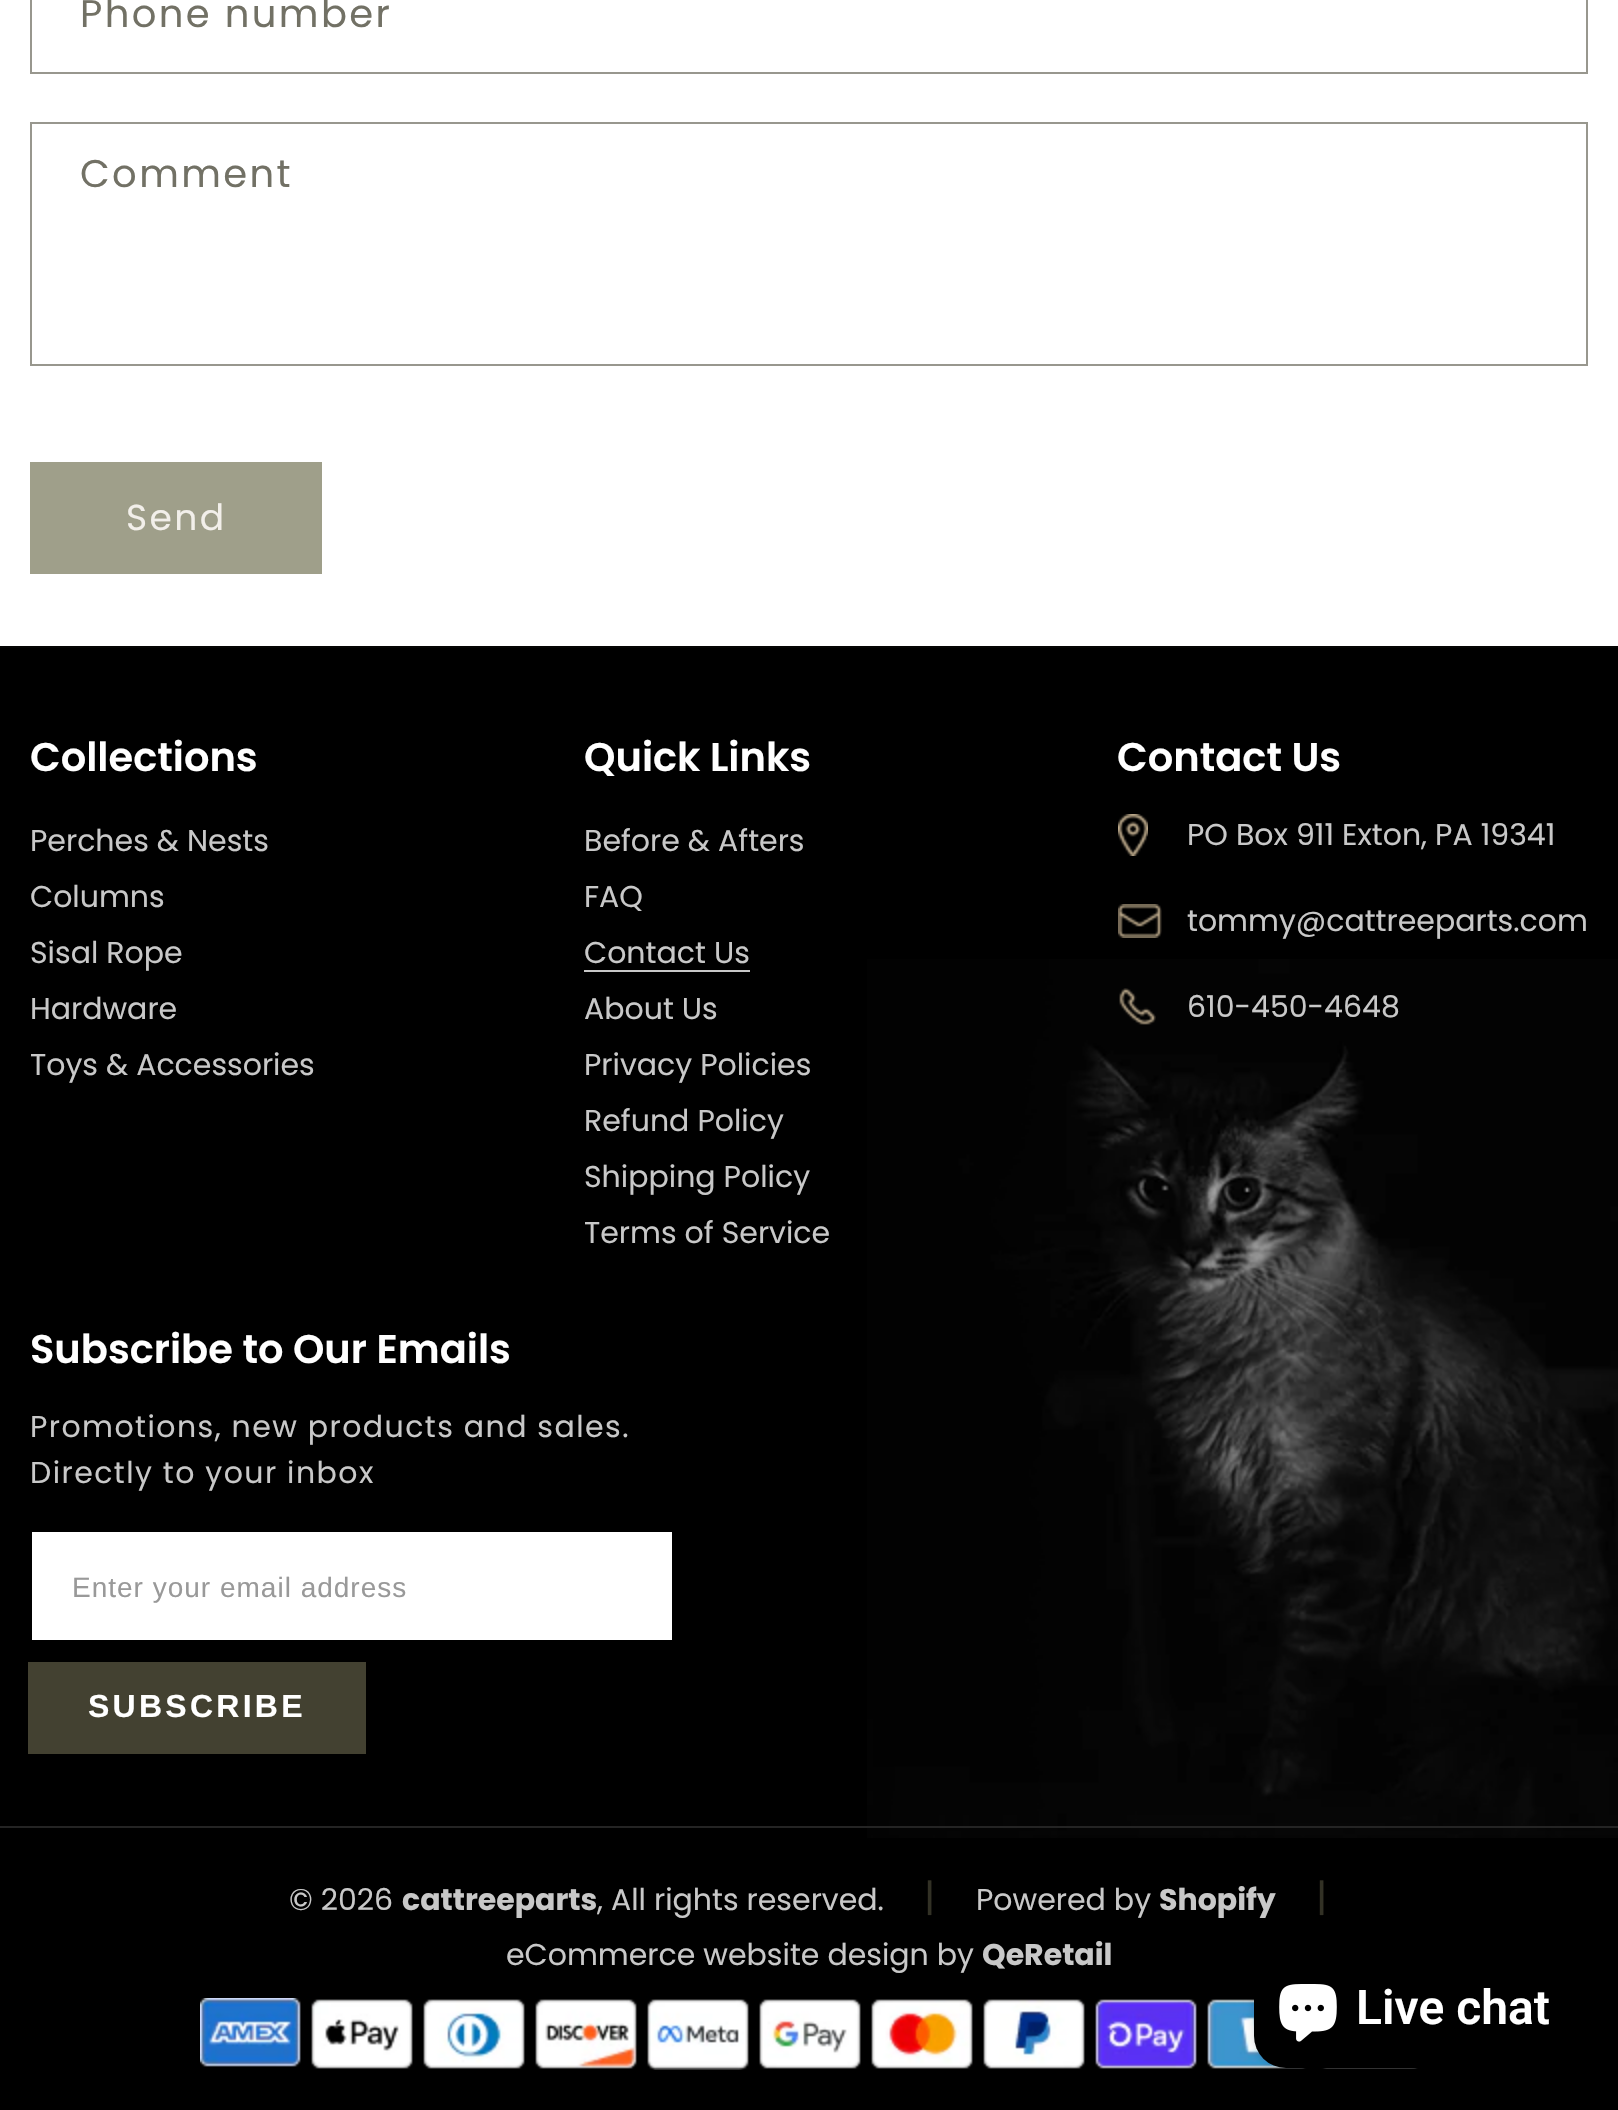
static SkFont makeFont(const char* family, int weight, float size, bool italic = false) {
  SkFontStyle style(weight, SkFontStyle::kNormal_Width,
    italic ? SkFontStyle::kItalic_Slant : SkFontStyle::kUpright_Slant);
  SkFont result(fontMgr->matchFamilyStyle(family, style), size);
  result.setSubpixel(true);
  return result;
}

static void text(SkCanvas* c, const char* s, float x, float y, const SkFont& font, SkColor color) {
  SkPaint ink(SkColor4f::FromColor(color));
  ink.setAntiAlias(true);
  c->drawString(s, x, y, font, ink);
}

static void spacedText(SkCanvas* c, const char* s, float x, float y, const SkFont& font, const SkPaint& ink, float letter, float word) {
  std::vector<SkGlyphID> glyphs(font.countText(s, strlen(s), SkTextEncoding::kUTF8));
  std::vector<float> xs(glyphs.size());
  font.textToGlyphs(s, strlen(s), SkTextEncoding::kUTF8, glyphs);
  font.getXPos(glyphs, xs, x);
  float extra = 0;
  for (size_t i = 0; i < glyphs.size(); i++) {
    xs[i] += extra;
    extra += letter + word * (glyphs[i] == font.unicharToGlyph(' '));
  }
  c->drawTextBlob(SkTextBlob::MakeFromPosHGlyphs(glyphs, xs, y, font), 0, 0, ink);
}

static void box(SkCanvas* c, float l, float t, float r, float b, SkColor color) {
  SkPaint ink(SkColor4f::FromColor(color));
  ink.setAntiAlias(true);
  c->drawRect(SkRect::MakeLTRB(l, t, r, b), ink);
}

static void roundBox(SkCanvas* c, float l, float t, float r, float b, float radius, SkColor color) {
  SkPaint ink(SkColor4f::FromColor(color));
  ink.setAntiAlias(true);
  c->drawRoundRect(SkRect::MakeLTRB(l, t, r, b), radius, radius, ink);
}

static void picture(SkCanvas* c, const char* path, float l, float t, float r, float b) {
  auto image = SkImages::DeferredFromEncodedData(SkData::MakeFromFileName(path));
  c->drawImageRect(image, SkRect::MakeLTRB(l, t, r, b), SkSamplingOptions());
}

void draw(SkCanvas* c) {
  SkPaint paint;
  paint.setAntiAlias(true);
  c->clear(0xffffffff);
  paint.setStyle(SkPaint::kStroke_Style);
  paint.setStrokeWidth(2);
  paint.setColor(0xff98978e);
  c->drawRect(SkRect::MakeLTRB(31, -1, 1587, 73), paint);
  SkFont face1 = makeFont("Poppins", 400, 38.5f);
  paint.setStyle(SkPaint::kFill_Style);
  paint.setColor(0xff727165);
  spacedText(c, "Phone number", 80, 27, face1, paint, 2.4f, 0);
  paint.setStyle(SkPaint::kStroke_Style);
  paint.setColor(0xff98978e);
  c->drawRect(SkRect::MakeLTRB(31, 123, 1587, 365), paint);
  paint.setStyle(SkPaint::kFill_Style);
  paint.setColor(0xff727165);
  spacedText(c, "Comment", 80, 187, face1, paint, 2.4f, 0);
  box(c, 30, 462, 322, 574, 0xff9f9f8a);
  SkFont face2 = makeFont("Poppins", 400, 36);
  paint.setColor(0xfff2efea);
  spacedText(c, "Send", 126, 530, face2, paint, 2.4f, 0);
  box(c, 0, 648, 1618, 2110, 0xff000000);
  picture(c, "img_01.png", 867, 959, 1618, 1838);
  box(c, 0, 646, 1618, 648, 0xff050504);
  SkFont face3 = makeFont("Poppins", 600, 40);
  text(c, "Collections", 30, 771, face3, 0xffffffff);
  SkFont face4 = makeFont("Poppins", 400, 30);
  text(c, "Perches & Nests", 30, 851, face4, 0xffc8c8c8);
  text(c, "Columns", 30, 907, face4, 0xffc8c8c8);
  text(c, "Sisal Rope", 30, 963, face4, 0xffc8c8c8);
  text(c, "Hardware", 30, 1019, face4, 0xffc8c8c8);
  text(c, "Toys & Accessories", 30, 1075, face4, 0xffc8c8c8);
  text(c, "Quick Links", 584, 771, face3, 0xffffffff);
  text(c, "Before & Afters", 584, 851, face4, 0xffc8c8c8);
  text(c, "FAQ", 584, 907, face4, 0xffc8c8c8);
  text(c, "Contact Us", 584, 963, face4, 0xffc8c8c8);
  box(c, 584, 970, 750, 972, 0xffc8c8c8);
  text(c, "About Us", 584, 1019, face4, 0xffc8c8c8);
  text(c, "Privacy Policies", 584, 1075, face4, 0xffc8c8c8);
  text(c, "Refund Policy", 584, 1131, face4, 0xffc8c8c8);
  text(c, "Shipping Policy", 584, 1187, face4, 0xffc8c8c8);
  text(c, "Terms of Service", 584, 1243, face4, 0xffc8c8c8);
  text(c, "Contact Us", 1117, 771, face3, 0xffffffff);
  picture(c, "img_02.png", 1118, 814, 1148, 856);
  text(c, "PO Box 911 Exton, PA 19341", 1187, 845, face4, 0xffc8c8c8);
  picture(c, "img_03.png", 1118, 904, 1162, 938);
  text(c, "tommy@cattreeparts.com", 1187, 931, face4, 0xffc8c8c8);
  picture(c, "img_04.png", 1119, 988, 1156, 1025);
  text(c, "610-450-4648", 1187, 1017, face4, 0xffc8c8c8);
  text(c, "Subscribe to Our Emails", 30, 1363, face3, 0xffffffff);
  paint.setColor(0xffc8c8c8);
  spacedText(c, "Promotions, new products and sales.", 30, 1437, face4, paint, 1.45f, 0);
  spacedText(c, "Directly to your inbox", 30, 1483, face4, paint, 1.45f, 0);
  box(c, 32, 1532, 672, 1640, 0xffffffff);
  SkFont face5 = makeFont("Liberation Sans", 400, 28);
  paint.setColor(0xff999999);
  spacedText(c, "Enter your email address", 72, 1597, face5, paint, 1, 0);
  box(c, 28, 1662, 366, 1754, 0xff434131);
  SkFont face6 = makeFont("Liberation Sans", 700, 32);
  paint.setColor(0xffffffff);
  spacedText(c, "SUBSCRIBE", 88, 1717, face6, paint, 3.25f, 0);
  box(c, 0, 1826, 1618, 1828, 0xff242424);
  text(c, "© 2026", 289, 1910, face4, 0xffc8c8c8);
  SkFont face7 = makeFont("Poppins", 700, 30);
  text(c, "cattreeparts", 402, 1910, face7, 0xffc8c8c8);
  text(c, ", All rights reserved.", 597, 1910, face4, 0xffc8c8c8);
  paint.setColor(0xff323125);
  spacedText(c, "|", 924, 1911, face1, paint, 1.45f, 0);
  text(c, "Powered by", 976, 1910, face4, 0xffc8c8c8);
  text(c, "Shopify", 1159, 1910, face7, 0xffc8c8c8);
  spacedText(c, "|", 1316, 1911, face1, paint, 1.45f, 0);
  text(c, "eCommerce website design by", 506, 1965, face4, 0xffc8c8c8);
  text(c, "QeRetail", 982, 1965, face7, 0xffc8c8c8);
  picture(c, "img_05.png", 200, 1998, 1418, 2070);
  paint.setColor(0x26000000);
  paint.setMaskFilter(SkMaskFilter::MakeBlur(kNormal_SkBlurStyle, 5));
  c->drawRoundRect(SkRect::MakeLTRB(1254, 1948, 1574, 2068), 32, 32, paint);
  paint.setMaskFilter(nullptr);
  roundBox(c, 1254, 1948, 1574, 2068, 32, 0xff000000);
  picture(c, "img_06.png", 1279, 1984, 1337, 2042);
  SkFont face8 = makeFont("Roboto", 600, 48);
  text(c, "Live chat", 1356, 2024, face8, 0xffffffff);
}
